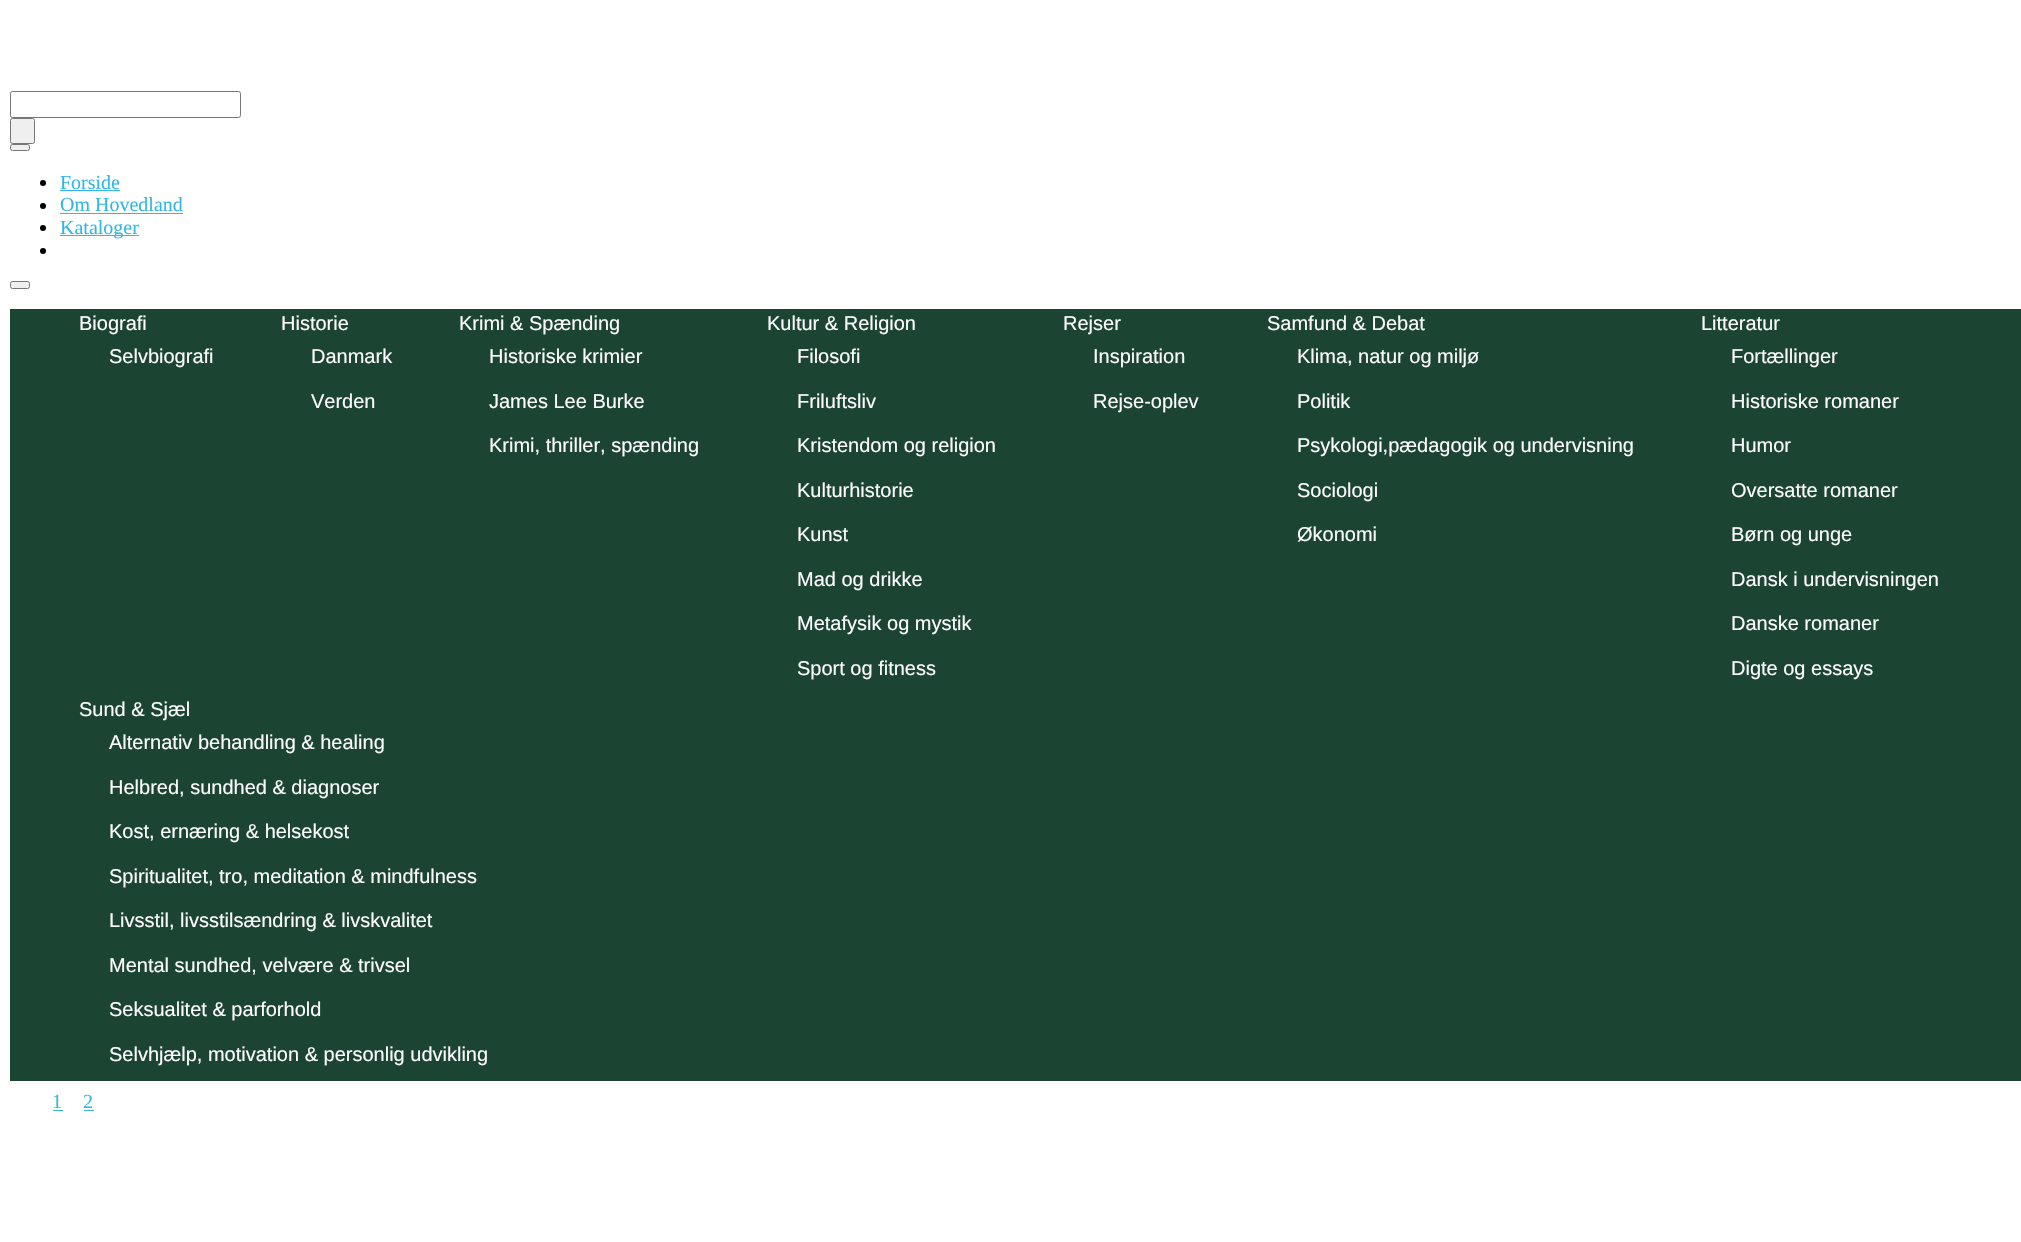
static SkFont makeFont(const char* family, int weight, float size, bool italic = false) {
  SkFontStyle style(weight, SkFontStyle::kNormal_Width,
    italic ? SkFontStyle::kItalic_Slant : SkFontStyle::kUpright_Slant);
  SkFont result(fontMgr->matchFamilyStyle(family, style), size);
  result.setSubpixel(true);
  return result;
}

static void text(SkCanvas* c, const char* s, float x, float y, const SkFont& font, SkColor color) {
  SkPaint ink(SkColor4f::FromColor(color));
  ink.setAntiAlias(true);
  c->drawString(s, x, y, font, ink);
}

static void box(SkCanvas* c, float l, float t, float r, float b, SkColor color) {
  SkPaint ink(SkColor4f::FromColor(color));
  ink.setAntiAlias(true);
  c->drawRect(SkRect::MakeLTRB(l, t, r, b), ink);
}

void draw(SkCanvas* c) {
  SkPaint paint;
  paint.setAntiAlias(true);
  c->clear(0xffffffff);
  paint.setStyle(SkPaint::kStroke_Style);
  paint.setStrokeWidth(1);
  paint.setColor(0xff767676);
  c->drawRoundRect(SkRect::MakeLTRB(10.5f, 91.5f, 240.5f, 117.5f), 2, 2, paint);
  paint.setStyle(SkPaint::kFill_Style);
  paint.setColor(0xffefefef);
  c->drawRoundRect(SkRect::MakeLTRB(10.5f, 118.5f, 34.5f, 143.5f), 2, 2, paint);
  paint.setStyle(SkPaint::kStroke_Style);
  paint.setColor(0xff767676);
  c->drawRoundRect(SkRect::MakeLTRB(10.5f, 118.5f, 34.5f, 143.5f), 2, 2, paint);
  paint.setStyle(SkPaint::kFill_Style);
  paint.setColor(0xffefefef);
  c->drawRoundRect(SkRect::MakeLTRB(10.5f, 144.5f, 29.5f, 150.5f), 2, 2, paint);
  paint.setStyle(SkPaint::kStroke_Style);
  paint.setColor(0xff767676);
  c->drawRoundRect(SkRect::MakeLTRB(10.5f, 144.5f, 29.5f, 150.5f), 2, 2, paint);
  paint.setStyle(SkPaint::kFill_Style);
  paint.setColor(0xff000000);
  c->drawCircle(43, 183, 3, paint);
  SkFont face1 = makeFont("Liberation Serif", 400, 20);
  text(c, "Forside", 60, 189, face1, 0xff33b6e4);
  box(c, 60, 190, 120, 191, 0xff33b6e4);
  c->drawCircle(43, 206, 3, paint);
  text(c, "Om Hovedland", 60, 211, face1, 0xff33b6e4);
  box(c, 60, 213, 183, 214, 0xff33b6e4);
  c->drawCircle(43, 228, 3, paint);
  box(c, 60, 235, 139, 236, 0xff33b6e4);
  text(c, "Kataloger", 60, 234, face1, 0xff33b6e4);
  c->drawCircle(43, 251, 3, paint);
  paint.setColor(0xffefefef);
  c->drawRoundRect(SkRect::MakeLTRB(10.5f, 281.5f, 29.5f, 288.5f), 2, 2, paint);
  paint.setStyle(SkPaint::kStroke_Style);
  paint.setColor(0xff767676);
  c->drawRoundRect(SkRect::MakeLTRB(10.5f, 281.5f, 29.5f, 288.5f), 2, 2, paint);
  box(c, 10, 309, 2021, 1081, 0xff1c4433);
  SkFont face2 = makeFont("Liberation Sans", 400, 20);
  text(c, "Biografi", 79, 330, face2, 0xffffffff);
  text(c, "Selvbiografi", 109, 363, face2, 0xffffffff);
  text(c, "Historie", 281, 330, face2, 0xffffffff);
  text(c, "Danmark", 311, 363, face2, 0xffffffff);
  text(c, "Verden", 311, 408, face2, 0xffffffff);
  text(c, "Krimi & Spænding", 459, 330, face2, 0xffffffff);
  text(c, "Historiske krimier", 489, 363, face2, 0xffffffff);
  text(c, "James Lee Burke", 489, 408, face2, 0xffffffff);
  text(c, "Krimi, thriller, spænding", 489, 452, face2, 0xffffffff);
  text(c, "Kultur & Religion", 767, 330, face2, 0xffffffff);
  text(c, "Filosofi", 797, 363, face2, 0xffffffff);
  text(c, "Friluftsliv", 797, 408, face2, 0xffffffff);
  text(c, "Kristendom og religion", 797, 452, face2, 0xffffffff);
  text(c, "Kulturhistorie", 797, 497, face2, 0xffffffff);
  text(c, "Kunst", 797, 541, face2, 0xffffffff);
  text(c, "Mad og drikke", 797, 586, face2, 0xffffffff);
  text(c, "Metafysik og mystik", 797, 630, face2, 0xffffffff);
  text(c, "Sport og fitness", 797, 675, face2, 0xffffffff);
  text(c, "Rejser", 1063, 330, face2, 0xffffffff);
  text(c, "Inspiration", 1093, 363, face2, 0xffffffff);
  text(c, "Rejse-oplev", 1093, 408, face2, 0xffffffff);
  text(c, "Samfund & Debat", 1267, 330, face2, 0xffffffff);
  text(c, "Klima, natur og miljø", 1297, 363, face2, 0xffffffff);
  text(c, "Politik", 1297, 408, face2, 0xffffffff);
  text(c, "Psykologi,pædagogik og undervisning", 1297, 452, face2, 0xffffffff);
  text(c, "Sociologi", 1297, 497, face2, 0xffffffff);
  text(c, "Økonomi", 1297, 541, face2, 0xffffffff);
  text(c, "Litteratur", 1701, 330, face2, 0xffffffff);
  text(c, "Fortællinger", 1731, 363, face2, 0xffffffff);
  text(c, "Historiske romaner", 1731, 408, face2, 0xffffffff);
  text(c, "Humor", 1731, 452, face2, 0xffffffff);
  text(c, "Oversatte romaner", 1731, 497, face2, 0xffffffff);
  text(c, "Børn og unge", 1731, 541, face2, 0xffffffff);
  text(c, "Dansk i undervisningen", 1731, 586, face2, 0xffffffff);
  text(c, "Danske romaner", 1731, 630, face2, 0xffffffff);
  text(c, "Digte og essays", 1731, 675, face2, 0xffffffff);
  text(c, "Sund & Sjæl", 79, 716, face2, 0xffffffff);
  text(c, "Alternativ behandling & healing", 109, 749, face2, 0xffffffff);
  text(c, "Helbred, sundhed & diagnoser", 109, 794, face2, 0xffffffff);
  text(c, "Kost, ernæring & helsekost", 109, 838, face2, 0xffffffff);
  text(c, "Spiritualitet, tro, meditation & mindfulness", 109, 883, face2, 0xffffffff);
  text(c, "Livsstil, livsstilsændring & livskvalitet", 109, 927, face2, 0xffffffff);
  text(c, "Mental sundhed, velvære & trivsel", 109, 972, face2, 0xffffffff);
  text(c, "Seksualitet & parforhold", 109, 1016, face2, 0xffffffff);
  text(c, "Selvhjælp, motivation & personlig udvikling", 109, 1061, face2, 0xffffffff);
  text(c, "1", 52, 1108, face1, 0xff33b6e4);
  box(c, 53, 1110, 63, 1111, 0xff33b6e4);
  text(c, "2", 83, 1108, face1, 0xff33b6e4);
  box(c, 84, 1110, 94, 1111, 0xff33b6e4);
}
